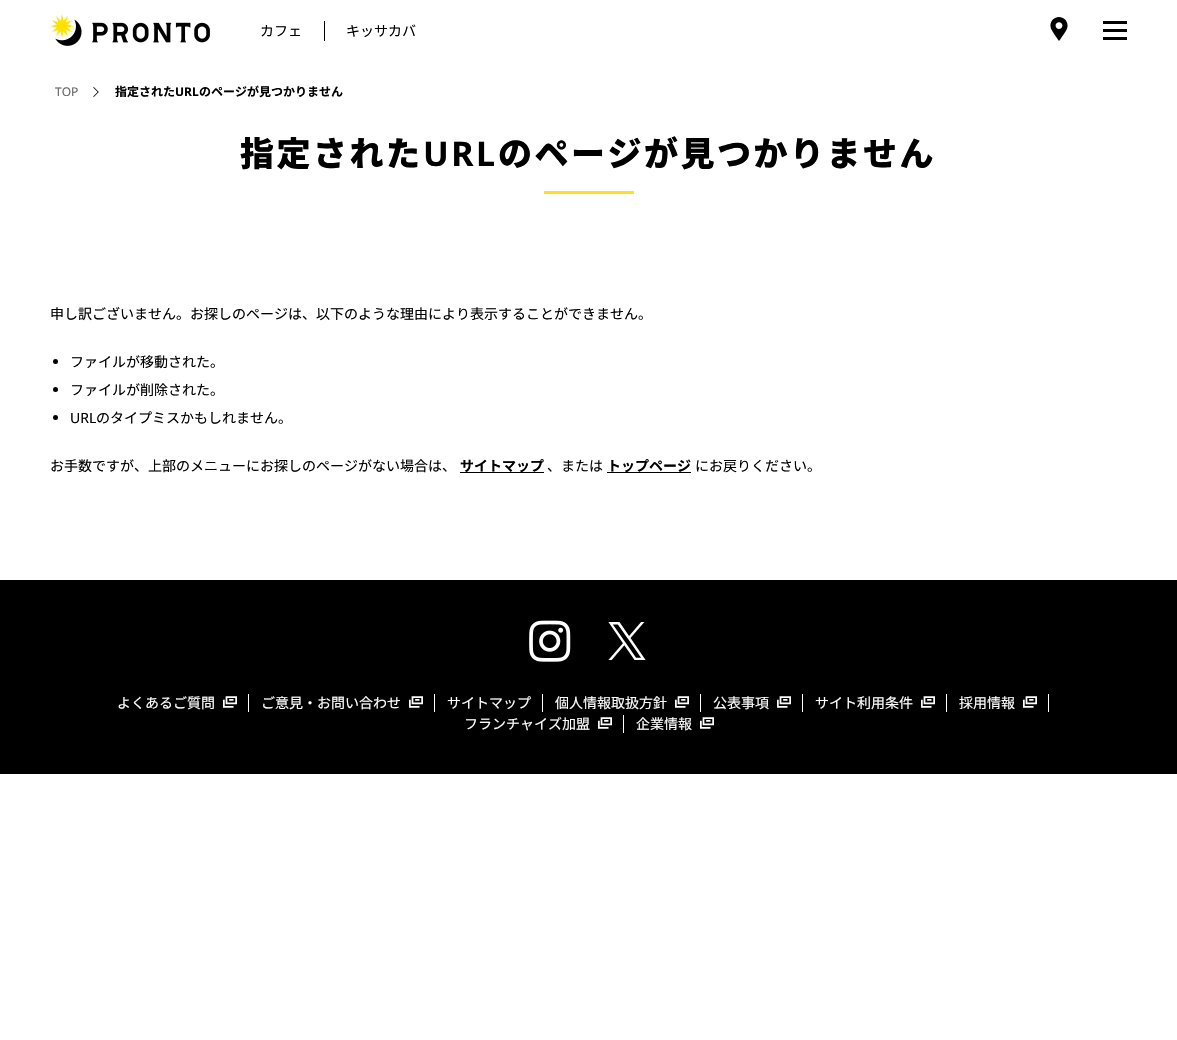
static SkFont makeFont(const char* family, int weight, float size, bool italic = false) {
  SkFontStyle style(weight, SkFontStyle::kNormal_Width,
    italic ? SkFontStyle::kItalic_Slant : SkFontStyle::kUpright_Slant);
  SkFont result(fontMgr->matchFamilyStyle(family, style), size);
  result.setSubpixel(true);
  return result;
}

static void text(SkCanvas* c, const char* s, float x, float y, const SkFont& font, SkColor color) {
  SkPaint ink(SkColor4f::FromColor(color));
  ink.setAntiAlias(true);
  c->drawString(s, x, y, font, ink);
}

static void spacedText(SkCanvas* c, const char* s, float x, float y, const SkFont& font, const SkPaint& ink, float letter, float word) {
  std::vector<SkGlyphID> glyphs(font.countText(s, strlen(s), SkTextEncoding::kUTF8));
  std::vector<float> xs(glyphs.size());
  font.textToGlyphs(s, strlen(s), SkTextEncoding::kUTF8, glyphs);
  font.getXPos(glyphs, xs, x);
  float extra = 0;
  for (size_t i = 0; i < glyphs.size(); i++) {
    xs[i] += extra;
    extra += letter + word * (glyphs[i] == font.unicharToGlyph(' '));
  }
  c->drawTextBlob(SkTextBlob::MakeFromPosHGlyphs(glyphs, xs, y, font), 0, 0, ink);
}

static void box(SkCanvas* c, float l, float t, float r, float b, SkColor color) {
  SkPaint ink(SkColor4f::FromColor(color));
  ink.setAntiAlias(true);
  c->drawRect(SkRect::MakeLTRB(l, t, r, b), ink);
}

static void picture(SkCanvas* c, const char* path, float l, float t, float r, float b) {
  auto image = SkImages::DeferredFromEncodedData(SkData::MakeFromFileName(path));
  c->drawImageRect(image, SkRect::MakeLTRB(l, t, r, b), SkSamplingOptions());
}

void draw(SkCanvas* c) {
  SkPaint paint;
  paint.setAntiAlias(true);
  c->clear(0xffffffff);
  picture(c, "img_01.png", 50, 14, 210, 46);
  SkFont face1 = makeFont("Noto Sans JP", 400, 14);
  text(c, "カフェ", 260, 36, face1, 0xff000000);
  box(c, 324, 21, 325, 41, 0xff000000);
  text(c, "キッサカバ", 346, 36, face1, 0xff000000);
  picture(c, "img_02.png", 1050, 17, 1068, 41);
  box(c, 1103, 21, 1127, 24, 0xff000000);
  box(c, 1103, 29, 1127, 32, 0xff000000);
  box(c, 1103, 37, 1127, 40, 0xff000000);
  SkFont face2 = makeFont("Noto Sans", 400, 12);
  text(c, "TOP", 55, 96, face2, 0xff666666);
  picture(c, "img_03.png", 93, 87, 99, 97);
  SkFont face3 = makeFont("Noto Sans JP", 700, 12);
  text(c, "指定された", 115, 96, face3, 0xff000000);
  SkFont face4 = makeFont("Noto Sans", 700, 12);
  text(c, "URL", 175, 96, face4, 0xff000000);
  text(c, "のページが見つかりません", 199, 96, face3, 0xff000000);
  SkFont face5 = makeFont("Noto Sans JP", 900, 34);
  paint.setColor(0xff000000);
  spacedText(c, "指定された", 240, 166, face5, paint, 2.5f, 0);
  SkFont face6 = makeFont("Noto Sans", 700, 34);
  spacedText(c, "URL", 423, 166, face6, paint, 2.5f, 0);
  spacedText(c, "のページが見つかりません", 498, 166, face5, paint, 2.5f, 0);
  box(c, 544, 191, 634, 194, 0xffffe022);
  text(c, "申し訳ございません。お探しのページは、以下のような理由により表示することができません。", 50, 319, face1, 0xff000000);
  c->drawCircle(55.5f, 361.5f, 2.5f, paint);
  text(c, "ファイルが移動された。", 70, 367, face1, 0xff000000);
  c->drawCircle(55.5f, 389.5f, 2.5f, paint);
  text(c, "ファイルが削除された。", 70, 395, face1, 0xff000000);
  c->drawCircle(55.5f, 417.5f, 2.5f, paint);
  SkFont face7 = makeFont("Noto Sans", 400, 14);
  text(c, "URL", 70, 423, face7, 0xff000000);
  text(c, "のタイプミスかもしれません。", 96, 423, face1, 0xff000000);
  text(c, "お手数ですが、上部のメニューにお探しのページがない場合は、", 50, 471, face1, 0xff000000);
  box(c, 460, 472, 544, 473, 0xff000000);
  SkFont face8 = makeFont("Noto Sans JP", 700, 14);
  text(c, "サイトマップ", 460, 471, face8, 0xff000000);
  text(c, "、または", 547, 471, face1, 0xff000000);
  box(c, 607, 472, 691, 473, 0xff000000);
  text(c, "トップページ", 607, 471, face8, 0xff000000);
  text(c, "にお戻りください。", 695, 471, face1, 0xff000000);
  box(c, 0, 580, 1177, 774, 0xff000000);
  picture(c, "img_04.png", 529, 620, 571, 662);
  picture(c, "img_05.png", 608, 622, 646, 660);
  text(c, "よくあるご質問", 117, 708, face1, 0xffffffff);
  picture(c, "img_06.png", 223, 696, 237, 708);
  box(c, 248, 694, 249, 712, 0xffffffff);
  text(c, "ご意見・お問い合わせ", 261, 708, face1, 0xffffffff);
  picture(c, "img_06.png", 409, 696, 423, 708);
  box(c, 434, 694, 435, 712, 0xffffffff);
  text(c, "サイトマップ", 447, 708, face1, 0xffffffff);
  box(c, 542, 694, 543, 712, 0xffffffff);
  text(c, "個人情報取扱方針", 555, 708, face1, 0xffffffff);
  picture(c, "img_06.png", 675, 696, 689, 708);
  box(c, 700, 694, 701, 712, 0xffffffff);
  text(c, "公表事項", 713, 708, face1, 0xffffffff);
  picture(c, "img_06.png", 777, 696, 791, 708);
  box(c, 802, 694, 803, 712, 0xffffffff);
  text(c, "サイト利用条件", 815, 708, face1, 0xffffffff);
  picture(c, "img_06.png", 921, 696, 935, 708);
  box(c, 946, 694, 947, 712, 0xffffffff);
  text(c, "採用情報", 959, 708, face1, 0xffffffff);
  picture(c, "img_06.png", 1023, 696, 1037, 708);
  box(c, 1048, 694, 1049, 712, 0xffffffff);
  text(c, "フランチャイズ加盟", 464, 729, face1, 0xffffffff);
  picture(c, "img_06.png", 598, 717, 612, 729);
  box(c, 623, 715, 624, 733, 0xffffffff);
  text(c, "企業情報", 636, 729, face1, 0xffffffff);
  picture(c, "img_06.png", 700, 717, 714, 729);
}
